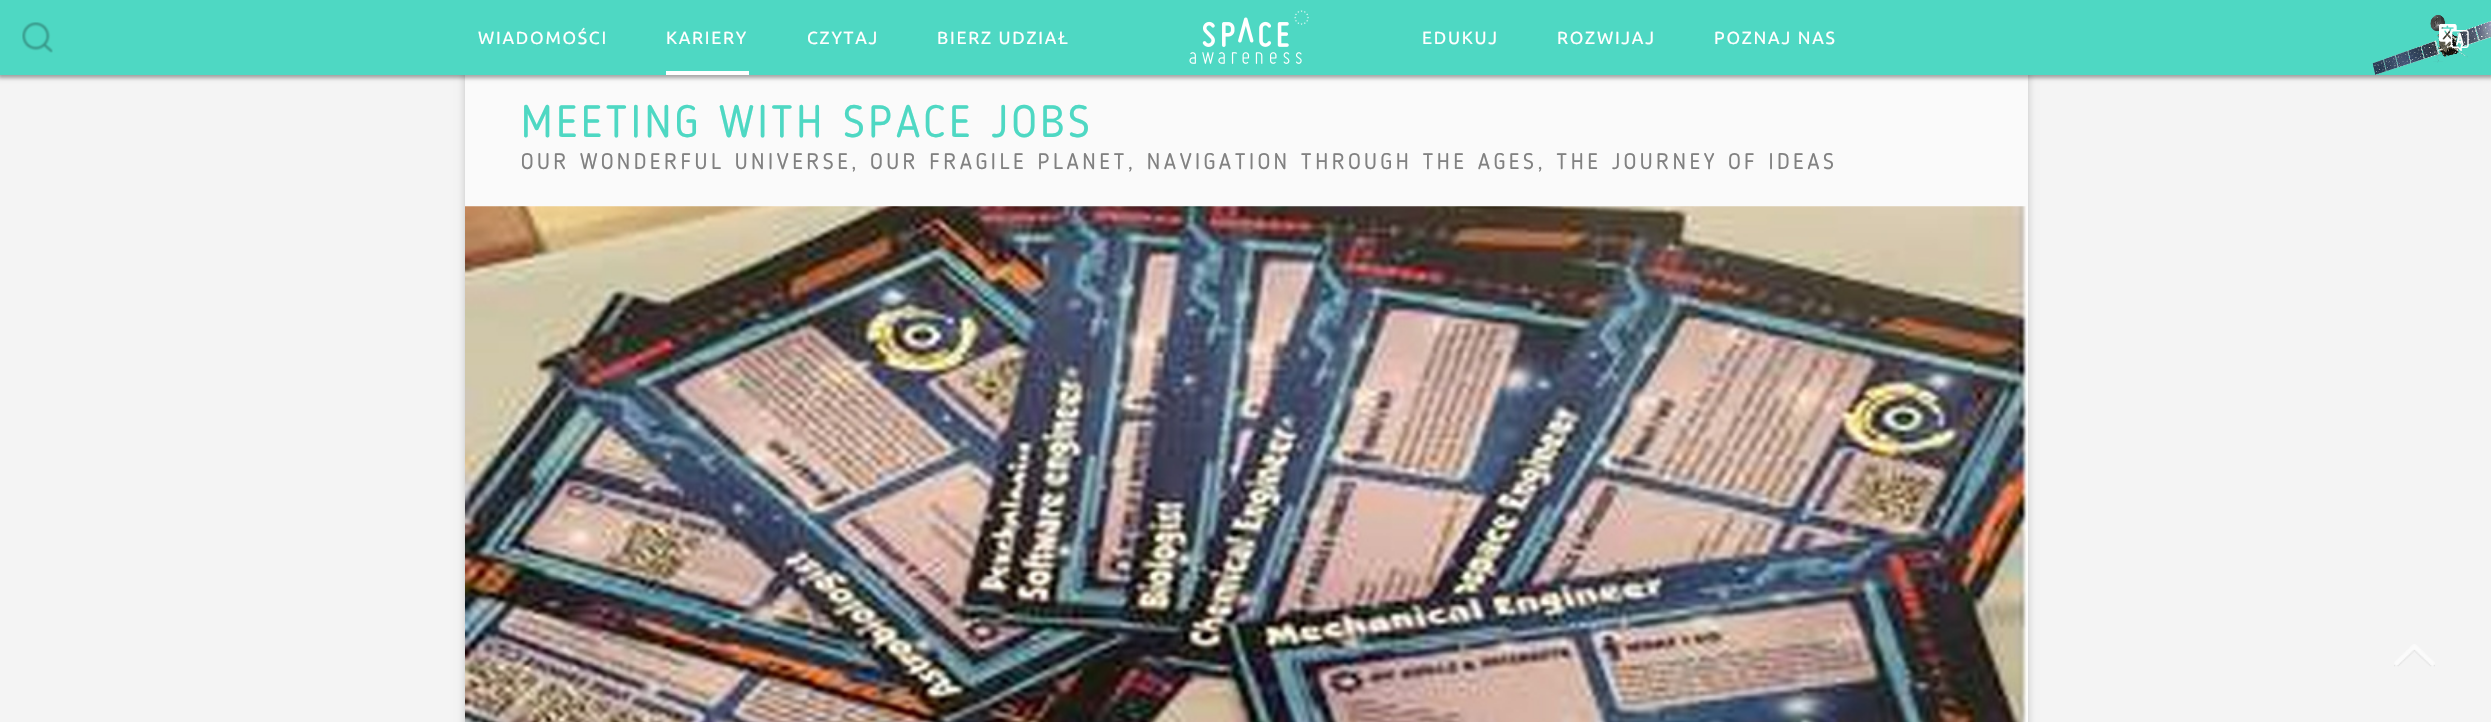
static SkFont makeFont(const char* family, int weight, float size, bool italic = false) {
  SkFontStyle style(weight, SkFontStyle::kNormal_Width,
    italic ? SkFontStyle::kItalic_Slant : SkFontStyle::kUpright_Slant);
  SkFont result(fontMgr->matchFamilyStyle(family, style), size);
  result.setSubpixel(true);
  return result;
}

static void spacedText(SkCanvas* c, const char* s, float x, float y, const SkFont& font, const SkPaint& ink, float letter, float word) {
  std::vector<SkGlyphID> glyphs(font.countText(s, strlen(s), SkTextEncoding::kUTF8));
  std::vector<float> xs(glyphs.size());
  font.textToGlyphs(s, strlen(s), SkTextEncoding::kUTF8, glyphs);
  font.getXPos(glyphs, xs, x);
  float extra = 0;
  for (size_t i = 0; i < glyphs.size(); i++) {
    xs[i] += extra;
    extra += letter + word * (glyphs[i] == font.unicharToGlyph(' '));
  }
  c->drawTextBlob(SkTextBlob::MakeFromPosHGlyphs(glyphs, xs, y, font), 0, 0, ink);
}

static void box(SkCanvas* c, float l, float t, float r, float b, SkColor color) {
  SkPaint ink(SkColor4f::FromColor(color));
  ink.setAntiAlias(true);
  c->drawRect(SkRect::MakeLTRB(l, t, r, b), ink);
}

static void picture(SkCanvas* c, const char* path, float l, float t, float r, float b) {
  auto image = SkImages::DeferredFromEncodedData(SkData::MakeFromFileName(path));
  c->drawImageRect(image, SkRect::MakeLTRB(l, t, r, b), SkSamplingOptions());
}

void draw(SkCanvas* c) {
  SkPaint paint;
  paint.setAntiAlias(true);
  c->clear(0xfff4f4f4);
  paint.setColor(0x33000000);
  paint.setMaskFilter(SkMaskFilter::MakeBlur(kNormal_SkBlurStyle, 4));
  c->drawRect(SkRect::MakeLTRB(465, 0, 2028, 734), paint);
  paint.setMaskFilter(nullptr);
  box(c, 465, 75, 2028, 722, 0xfffafafa);
  paint.setColor(0x59000000);
  paint.setMaskFilter(SkMaskFilter::MakeBlur(kNormal_SkBlurStyle, 2));
  c->drawRect(SkRect::MakeLTRB(-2, -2, 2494, 78), paint);
  paint.setMaskFilter(nullptr);
  box(c, 0, 0, 2491, 75, 0xff4ed8c3);
  picture(c, "img_01.png", 22, 22, 53, 53);
  picture(c, "img_02.png", 2372, 14, 2491, 75);
  picture(c, "img_03.png", 1189, 10, 1309, 64);
  SkFont face1 = makeFont("Ubuntu", 400, 17.5f);
  paint.setColor(0xffffffff);
  spacedText(c, "WIADOMOŚCI", 478, 44, face1, paint, 1.75f, 0);
  box(c, 666, 71, 749, 75, 0xffffffff);
  spacedText(c, "KARIERY", 666, 44, face1, paint, 1.75f, 0);
  spacedText(c, "CZYTAJ", 807, 44, face1, paint, 1.75f, 0);
  spacedText(c, "BIERZ UDZIAŁ", 937, 44, face1, paint, 1.75f, 0);
  spacedText(c, "EDUKUJ", 1422, 44, face1, paint, 1.75f, 0);
  spacedText(c, "ROZWIJAJ", 1557, 44, face1, paint, 1.75f, 0);
  spacedText(c, "POZNAJ NAS", 1714, 44, face1, paint, 1.75f, 0);
  picture(c, "img_04.png", 2439, 24, 2469, 51);
  SkFont face2 = makeFont("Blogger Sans", 400, 45);
  paint.setColor(0xff4ed8c3);
  spacedText(c, "MEETING WITH SPACE JOBS", 521, 137, face2, paint, 3.5f, 0);
  SkFont face3 = makeFont("Blogger Sans", 400, 22.5f);
  paint.setColor(0xff818181);
  spacedText(c, "OUR WONDERFUL UNIVERSE, OUR FRAGILE PLANET, NAVIGATION THROUGH THE AGES, THE JOURNEY OF IDEAS", 521, 169, face3, paint, 3.5f, 0);
  picture(c, "img_05.png", 465, 206, 2028, 722);
  picture(c, "img_06.png", 2394, 644, 2435, 667);
}
